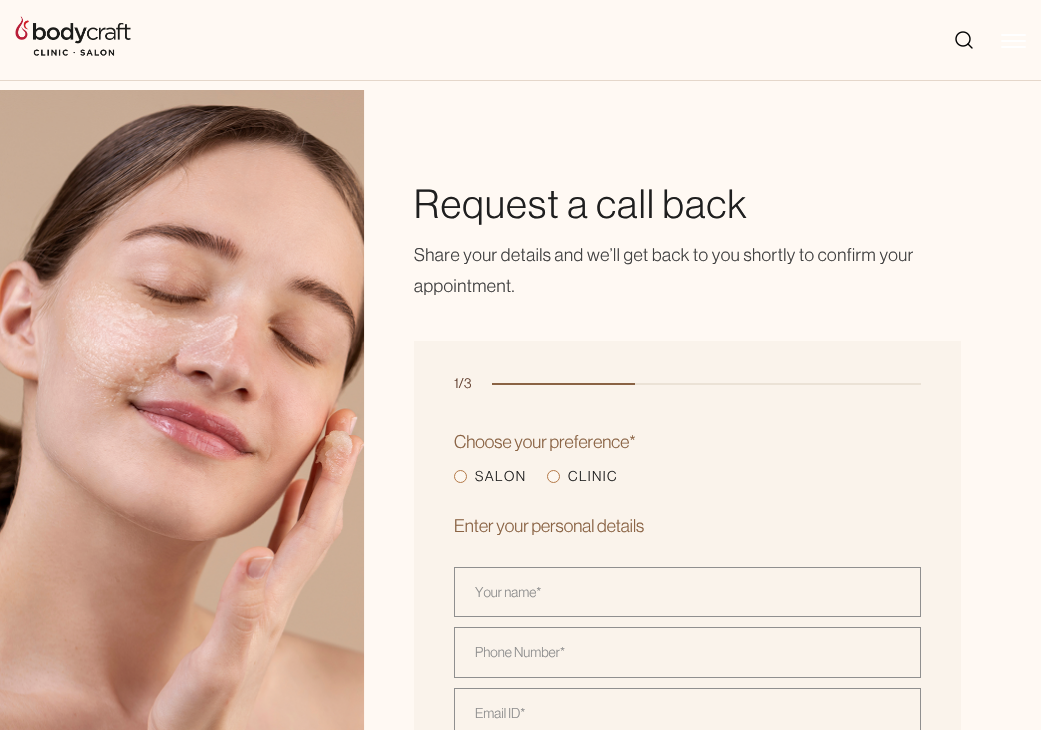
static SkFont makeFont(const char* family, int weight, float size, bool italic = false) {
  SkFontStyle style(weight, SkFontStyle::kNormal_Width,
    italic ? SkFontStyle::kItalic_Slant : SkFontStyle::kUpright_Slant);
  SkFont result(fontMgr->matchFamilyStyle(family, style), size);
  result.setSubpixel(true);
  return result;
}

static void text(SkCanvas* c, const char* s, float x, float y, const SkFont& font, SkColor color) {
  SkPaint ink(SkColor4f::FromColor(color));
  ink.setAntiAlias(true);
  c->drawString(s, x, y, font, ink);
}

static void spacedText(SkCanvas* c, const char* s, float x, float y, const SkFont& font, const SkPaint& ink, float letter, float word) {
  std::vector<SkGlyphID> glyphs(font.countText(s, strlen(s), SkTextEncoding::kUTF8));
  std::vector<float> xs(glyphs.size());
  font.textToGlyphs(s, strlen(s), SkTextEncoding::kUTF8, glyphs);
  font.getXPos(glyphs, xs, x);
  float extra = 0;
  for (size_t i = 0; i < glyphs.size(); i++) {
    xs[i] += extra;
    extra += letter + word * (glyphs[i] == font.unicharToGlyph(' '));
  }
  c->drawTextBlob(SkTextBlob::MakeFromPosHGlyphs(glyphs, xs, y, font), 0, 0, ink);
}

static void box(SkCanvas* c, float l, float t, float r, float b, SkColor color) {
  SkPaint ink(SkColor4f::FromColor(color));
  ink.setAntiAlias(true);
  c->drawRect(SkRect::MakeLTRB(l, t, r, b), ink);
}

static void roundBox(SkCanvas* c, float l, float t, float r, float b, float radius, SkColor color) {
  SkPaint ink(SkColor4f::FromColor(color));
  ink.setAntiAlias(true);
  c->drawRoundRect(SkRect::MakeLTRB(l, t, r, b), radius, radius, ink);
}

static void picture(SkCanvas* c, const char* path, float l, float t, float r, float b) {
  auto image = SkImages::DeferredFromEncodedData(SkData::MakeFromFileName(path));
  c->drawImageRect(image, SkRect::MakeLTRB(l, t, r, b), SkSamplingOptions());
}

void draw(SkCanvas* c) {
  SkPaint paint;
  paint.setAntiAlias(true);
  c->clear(0xfffff9f3);
  box(c, 0, 80, 1041, 81, 0xffe5d7ca);
  picture(c, "img_01.png", 15, 16, 131, 56);
  picture(c, "img_02.png", 955, 31, 973, 49);
  roundBox(c, 1001, 40, 1026, 42, 1, 0xffffffff);
  roundBox(c, 1001, 34, 1026, 36, 1, 0xffffffff);
  roundBox(c, 1001, 46, 1026, 48, 1, 0xffffffff);
  picture(c, "img_03.png", 0, 90, 365, 730);
  SkFont face1 = makeFont("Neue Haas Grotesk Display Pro", 400, 40);
  paint.setColor(0xff1f1f1f);
  spacedText(c, "Request a call back", 414, 218, face1, paint, 1.4f, 0);
  SkFont face2 = makeFont("Neue Haas Grotesk Display Pro", 400, 18);
  paint.setColor(0xff404040);
  spacedText(c, "Share your details and we’ll get back to you shortly to confirm your", 414, 261, face2, paint, 0.5f, 0);
  spacedText(c, "appointment.", 414, 292, face2, paint, 0.5f, 0);
  box(c, 414, 341, 961, 730, 0xfffaf3eb);
  SkFont face3 = makeFont("Neue Haas Grotesk Display Pro", 400, 14);
  text(c, "1/3", 454, 388, face3, 0xff5f3c2c);
  box(c, 635, 383, 921, 385, 0xffebe2d6);
  box(c, 492, 383, 635, 385, 0xff8a6344);
  text(c, "Choose your preference*", 454, 448, face2, 0xff8a6344);
  paint.setColor(0xfffdf7f0);
  c->drawCircle(460.5f, 476.5f, 6, paint);
  paint.setStyle(SkPaint::kStroke_Style);
  paint.setStrokeWidth(1);
  paint.setColor(0xffb47948);
  c->drawCircle(460.5f, 476.5f, 6, paint);
  paint.setStyle(SkPaint::kFill_Style);
  paint.setColor(0xff1f1f1f);
  spacedText(c, "SALON", 475, 481, face3, paint, 1.4f, 0);
  paint.setColor(0xfffdf7f0);
  c->drawCircle(553.5f, 476.5f, 6, paint);
  paint.setStyle(SkPaint::kStroke_Style);
  paint.setColor(0xffb47948);
  c->drawCircle(553.5f, 476.5f, 6, paint);
  paint.setStyle(SkPaint::kFill_Style);
  paint.setColor(0xff1f1f1f);
  spacedText(c, "CLINIC", 568, 481, face3, paint, 1.4f, 0);
  text(c, "Enter your personal details", 454, 532, face2, 0xff8a6344);
  paint.setStyle(SkPaint::kStroke_Style);
  paint.setColor(0xff8f8f8f);
  c->drawRect(SkRect::MakeLTRB(454.5f, 567.5f, 920.5f, 616.5f), paint);
  text(c, "Your name*", 475, 597, face3, 0xff8f8f8f);
  c->drawRect(SkRect::MakeLTRB(454.5f, 627.5f, 920.5f, 677.5f), paint);
  text(c, "Phone Number*", 475, 657, face3, 0xff8f8f8f);
  c->drawRect(SkRect::MakeLTRB(454.5f, 688.5f, 920.5f, 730.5f), paint);
  text(c, "Email ID*", 475, 718, face3, 0xff8f8f8f);
}
